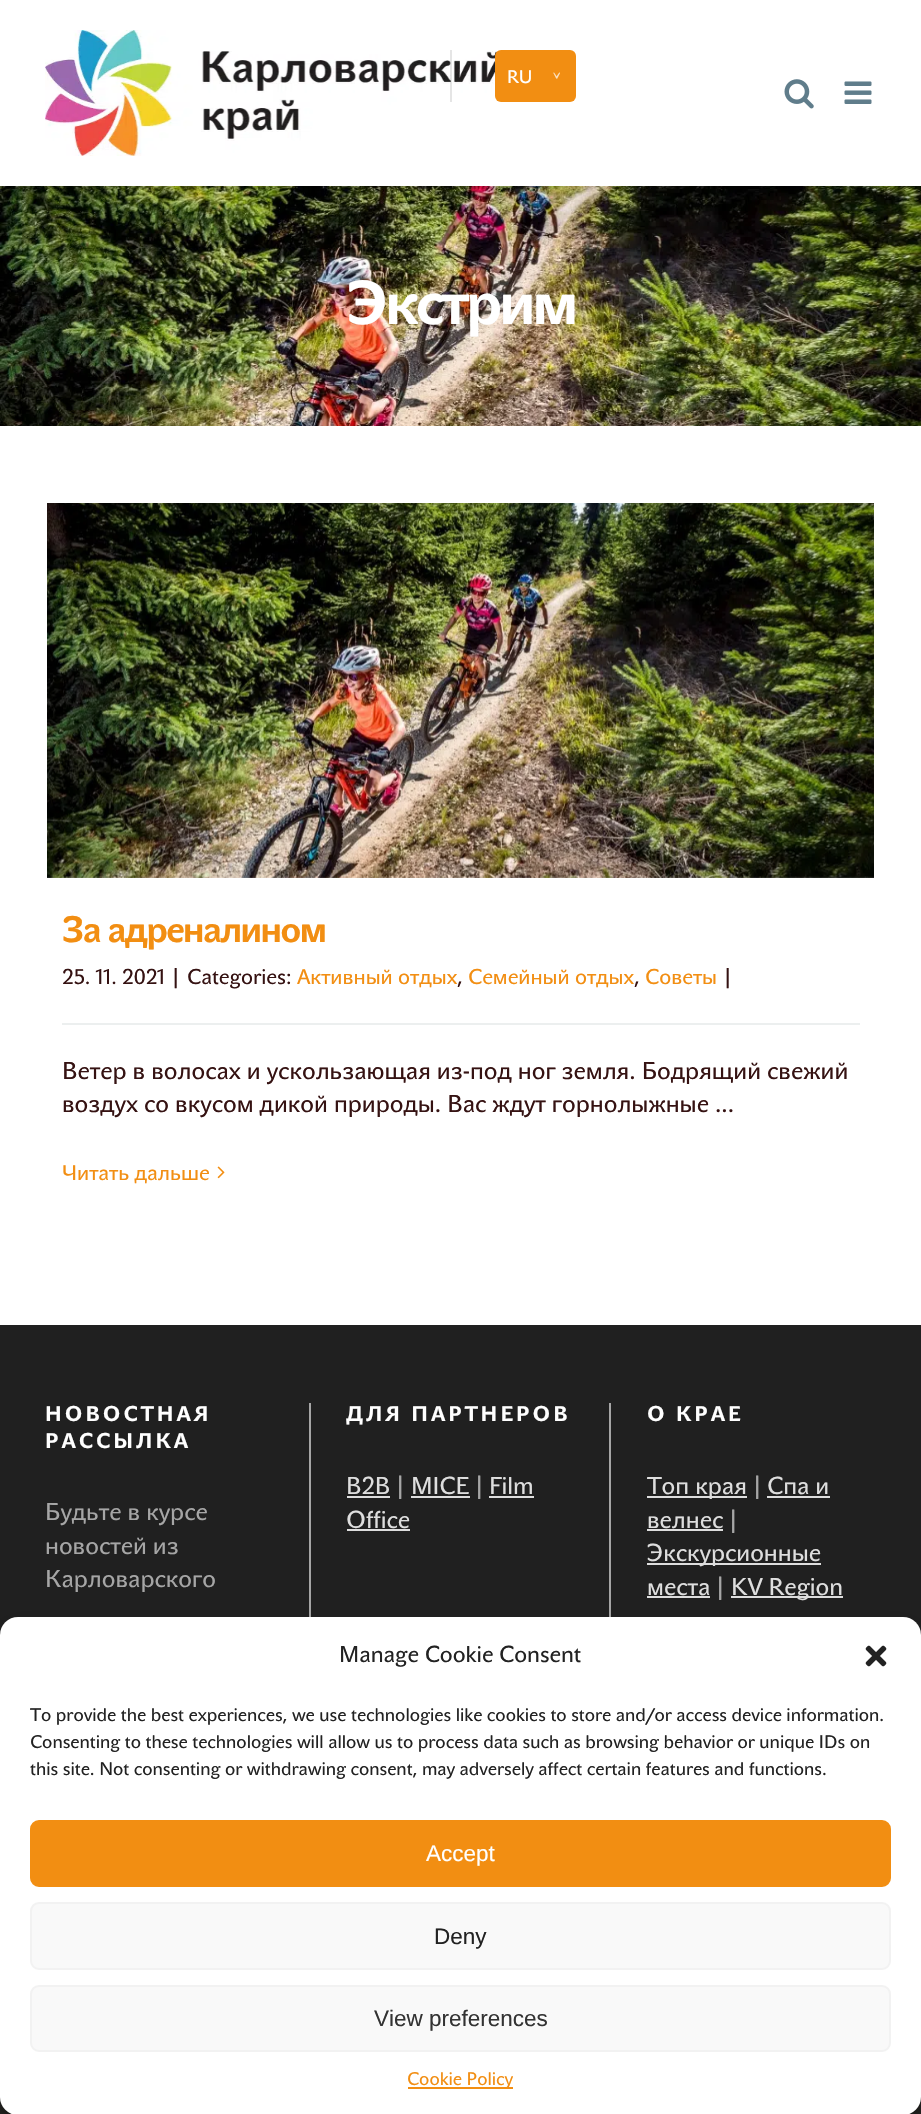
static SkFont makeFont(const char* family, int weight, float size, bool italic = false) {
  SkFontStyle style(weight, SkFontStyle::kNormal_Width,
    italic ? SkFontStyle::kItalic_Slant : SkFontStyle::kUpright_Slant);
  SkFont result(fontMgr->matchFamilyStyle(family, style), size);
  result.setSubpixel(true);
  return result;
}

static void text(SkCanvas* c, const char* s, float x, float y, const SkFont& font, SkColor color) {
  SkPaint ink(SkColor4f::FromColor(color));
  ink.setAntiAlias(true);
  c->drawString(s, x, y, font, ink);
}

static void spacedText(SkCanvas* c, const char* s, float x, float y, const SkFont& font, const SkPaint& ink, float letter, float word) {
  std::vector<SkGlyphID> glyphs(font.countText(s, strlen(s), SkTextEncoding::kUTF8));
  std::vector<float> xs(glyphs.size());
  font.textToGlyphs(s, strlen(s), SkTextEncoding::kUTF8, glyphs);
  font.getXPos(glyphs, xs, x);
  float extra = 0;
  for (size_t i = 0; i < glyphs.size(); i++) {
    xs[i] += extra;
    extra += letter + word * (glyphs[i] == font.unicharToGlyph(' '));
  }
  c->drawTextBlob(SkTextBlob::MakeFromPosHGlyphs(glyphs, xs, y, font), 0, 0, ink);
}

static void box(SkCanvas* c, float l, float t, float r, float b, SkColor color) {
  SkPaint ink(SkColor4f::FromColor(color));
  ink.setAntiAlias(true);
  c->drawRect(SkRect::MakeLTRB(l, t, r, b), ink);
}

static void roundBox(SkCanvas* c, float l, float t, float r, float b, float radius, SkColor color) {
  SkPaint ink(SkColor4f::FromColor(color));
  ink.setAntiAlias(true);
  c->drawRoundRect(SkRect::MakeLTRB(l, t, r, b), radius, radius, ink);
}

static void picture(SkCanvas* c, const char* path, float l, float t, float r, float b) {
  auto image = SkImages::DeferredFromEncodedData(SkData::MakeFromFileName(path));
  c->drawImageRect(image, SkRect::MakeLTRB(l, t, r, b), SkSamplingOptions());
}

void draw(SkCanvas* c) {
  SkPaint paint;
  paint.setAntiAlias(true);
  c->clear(0xffffffff);
  picture(c, "img_04.png", 0, 186, 921, 426);
  c->save();
  c->clipRect(SkRect::MakeLTRB(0, 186, 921, 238));
  paint.setColor(0x24000000);
  paint.setMaskFilter(SkMaskFilter::MakeBlur(kNormal_SkBlurStyle, 37.5f));
  c->drawRect(SkRect::MakeLTRB(3, 18, 918, 198), paint);
  paint.setMaskFilter(nullptr);
  c->restore();
  picture(c, "img_01.png", 45, 30, 505, 156);
  box(c, 450, 50, 452, 102, 0x1a000000);
  roundBox(c, 495, 50, 576, 102, 6, 0xfff28e12);
  SkFont face1 = makeFont("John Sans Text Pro", 400, 18);
  text(c, "RU", 507, 83, face1, 0xffffffff);
  SkFont face2 = makeFont("John Sans Text Pro", 400, 15);
  c->save();
  c->rotate(90, 553, 72);
  text(c, ">", 553, 72, face2, 0xfffce3c4);
  c->restore();
  picture(c, "img_02.png", 784, 79, 814, 109);
  picture(c, "img_03.png", 844, 81, 872, 104);
  SkFont face3 = makeFont("John Sans Text Pro", 700, 60.5f);
  paint.setColor(0xffffffff);
  spacedText(c, "Экстрим", 347, 324, face3, paint, -3, 0);
  picture(c, "img_05.png", 47, 503, 874, 878);
  SkFont face4 = makeFont("John Sans Text Pro", 700, 36);
  paint.setColor(0xfff28e12);
  spacedText(c, "За адреналином", 62, 942, face4, paint, -1.5f, 0);
  SkFont face5 = makeFont("John Sans Text Pro", 400, 21);
  text(c, "25. 11. 2021", 62, 984, face5, 0xff351212);
  text(c, "|", 172, 984, face5, 0xff351212);
  text(c, "Categories:", 187, 984, face5, 0xff351212);
  text(c, "Активный отдых", 297, 984, face5, 0xfff28e12);
  text(c, ",", 457, 984, face5, 0xff351212);
  text(c, "Семейный отдых", 468, 984, face5, 0xfff28e12);
  text(c, ",", 634, 984, face5, 0xff351212);
  text(c, "Советы", 645, 984, face5, 0xfff28e12);
  text(c, "|", 724, 984, face5, 0xff351212);
  box(c, 62, 1023, 860, 1025, 0xffecefef);
  SkFont face6 = makeFont("John Sans Text Pro", 400, 24);
  text(c, "Ветер в волосах и ускользающая из-под ног земля. Бодрящий свежий", 62, 1079, face6, 0xff351212);
  text(c, "воздух со вкусом дикой природы. Вас ждут горнолыжные ...", 62, 1112, face6, 0xff351212);
  text(c, "Читать дальше", 62, 1180, face5, 0xfff28e12);
  picture(c, "img_06.png", 217, 1166, 225, 1179);
  box(c, 0, 1325, 921, 1635, 0xff202020);
  box(c, 309, 1403, 311, 1617, 0xffa6a6a6);
  SkFont face7 = makeFont("John Sans Text Pro", 700, 21);
  paint.setColor(0xffffffff);
  spacedText(c, "НОВОСТНАЯ", 45, 1421, face7, paint, 3, 0);
  spacedText(c, "РАССЫЛКА", 45, 1448, face7, paint, 3, 0);
  text(c, "Будьте в курсе", 45, 1520, face6, 0xffa6a6a6);
  text(c, "новостей из", 45, 1554, face6, 0xffa6a6a6);
  text(c, "Карловарского", 45, 1587, face6, 0xffa6a6a6);
  box(c, 609, 1403, 611, 1617, 0xffa6a6a6);
  spacedText(c, "ДЛЯ ПАРТНЕРОВ", 346, 1421, face7, paint, 3, 0);
  text(c, "B2B", 346, 1494, face6, 0xffdedede);
  box(c, 347, 1496, 390, 1498, 0xffdedede);
  text(c, "|", 396, 1494, face6, 0xffa6a6a6);
  text(c, "MICE", 411, 1494, face6, 0xffdedede);
  box(c, 411, 1496, 470, 1498, 0xffdedede);
  text(c, "|", 475, 1494, face6, 0xffa6a6a6);
  text(c, "Film", 489, 1494, face6, 0xffdedede);
  box(c, 489, 1496, 534, 1498, 0xffdedede);
  text(c, "Office", 346, 1528, face6, 0xffdedede);
  box(c, 347, 1529, 410, 1531, 0xffdedede);
  spacedText(c, "О КРАЕ", 647, 1421, face7, paint, 3, 0);
  box(c, 647, 1496, 747, 1498, 0xffdedede);
  text(c, "Топ края", 647, 1494, face6, 0xffdedede);
  text(c, "|", 753, 1494, face6, 0xffa6a6a6);
  text(c, "Cпа и", 767, 1494, face6, 0xffdedede);
  box(c, 767, 1496, 830, 1498, 0xffdedede);
  text(c, "велнес", 647, 1528, face6, 0xffdedede);
  box(c, 647, 1529, 723, 1531, 0xffdedede);
  text(c, "|", 729, 1528, face6, 0xffa6a6a6);
  box(c, 647, 1563, 821, 1565, 0xffdedede);
  text(c, "Экскурсионные", 647, 1561, face6, 0xffdedede);
  text(c, "места", 647, 1595, face6, 0xffdedede);
  box(c, 647, 1596, 710, 1598, 0xffdedede);
  text(c, "|", 716, 1595, face6, 0xffa6a6a6);
  box(c, 731, 1596, 843, 1598, 0xffdedede);
  text(c, "KV Region", 731, 1595, face6, 0xffdedede);
  box(c, 0, 2097, 921, 2114, 0xff272624);
  paint.setColor(0x3b000000);
  paint.setMaskFilter(SkMaskFilter::MakeBlur(kNormal_SkBlurStyle, 4.5f));
  c->drawRoundRect(SkRect::MakeLTRB(0, 1626, 921, 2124), 18, 18, paint);
  paint.setMaskFilter(nullptr);
  paint.setColor(0x30000000);
  paint.setMaskFilter(SkMaskFilter::MakeBlur(kNormal_SkBlurStyle, 15));
  c->drawRoundRect(SkRect::MakeLTRB(0, 1632, 921, 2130), 18, 18, paint);
  paint.setMaskFilter(nullptr);
  roundBox(c, 0, 1617, 921, 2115, 18, 0xffffffff);
  SkFont face8 = makeFont("John Sans Text Pro", 400, 22.5f);
  text(c, "Manage Cookie Consent", 339, 1662, face8, 0xff222222);
  picture(c, "img_07.png", 865, 1645, 887, 1667);
  text(c, "To provide the best experiences, we use technologies like cookies to store and/or access device information.", 30, 1721, face1, 0xff222222);
  text(c, "Consenting to these technologies will allow us to process data such as browsing behavior or unique IDs on", 30, 1748, face1, 0xff222222);
  text(c, "this site. Not consenting or withdrawing consent, may adversely affect certain features and functions.", 30, 1775, face1, 0xff222222);
  paint.setColor(0xfff28e12);
  c->drawRoundRect(SkRect::MakeLTRB(31, 1821, 890, 1886), 8, 8, paint);
  paint.setStyle(SkPaint::kStroke_Style);
  paint.setStrokeWidth(2);
  c->drawRoundRect(SkRect::MakeLTRB(31, 1821, 890, 1886), 8, 8, paint);
  SkFont face9 = makeFont("Liberation Sans", 400, 22.5f);
  text(c, "Accept", 426, 1861, face9, 0xffffffff);
  paint.setStyle(SkPaint::kFill_Style);
  paint.setColor(0xfff9f9f9);
  c->drawRoundRect(SkRect::MakeLTRB(31, 1903, 890, 1969), 8, 8, paint);
  paint.setStyle(SkPaint::kStroke_Style);
  paint.setColor(0xfff2f2f2);
  c->drawRoundRect(SkRect::MakeLTRB(31, 1903, 890, 1969), 8, 8, paint);
  text(c, "Deny", 434, 1944, face9, 0xff222222);
  paint.setStyle(SkPaint::kFill_Style);
  paint.setColor(0xfff9f9f9);
  c->drawRoundRect(SkRect::MakeLTRB(31, 1986, 890, 2051), 8, 8, paint);
  paint.setStyle(SkPaint::kStroke_Style);
  paint.setColor(0xfff2f2f2);
  c->drawRoundRect(SkRect::MakeLTRB(31, 1986, 890, 2051), 8, 8, paint);
  text(c, "View preferences", 374, 2026, face9, 0xff333333);
  box(c, 408, 2087, 513, 2089, 0xfff28e12);
  text(c, "Cookie Policy", 407, 2085, face1, 0xfff28e12);
}
